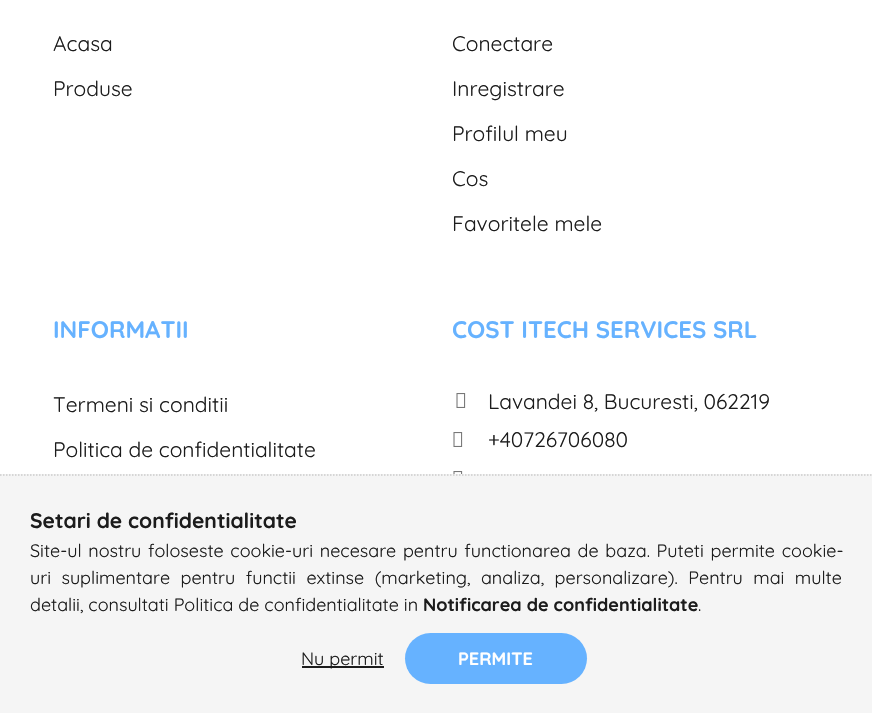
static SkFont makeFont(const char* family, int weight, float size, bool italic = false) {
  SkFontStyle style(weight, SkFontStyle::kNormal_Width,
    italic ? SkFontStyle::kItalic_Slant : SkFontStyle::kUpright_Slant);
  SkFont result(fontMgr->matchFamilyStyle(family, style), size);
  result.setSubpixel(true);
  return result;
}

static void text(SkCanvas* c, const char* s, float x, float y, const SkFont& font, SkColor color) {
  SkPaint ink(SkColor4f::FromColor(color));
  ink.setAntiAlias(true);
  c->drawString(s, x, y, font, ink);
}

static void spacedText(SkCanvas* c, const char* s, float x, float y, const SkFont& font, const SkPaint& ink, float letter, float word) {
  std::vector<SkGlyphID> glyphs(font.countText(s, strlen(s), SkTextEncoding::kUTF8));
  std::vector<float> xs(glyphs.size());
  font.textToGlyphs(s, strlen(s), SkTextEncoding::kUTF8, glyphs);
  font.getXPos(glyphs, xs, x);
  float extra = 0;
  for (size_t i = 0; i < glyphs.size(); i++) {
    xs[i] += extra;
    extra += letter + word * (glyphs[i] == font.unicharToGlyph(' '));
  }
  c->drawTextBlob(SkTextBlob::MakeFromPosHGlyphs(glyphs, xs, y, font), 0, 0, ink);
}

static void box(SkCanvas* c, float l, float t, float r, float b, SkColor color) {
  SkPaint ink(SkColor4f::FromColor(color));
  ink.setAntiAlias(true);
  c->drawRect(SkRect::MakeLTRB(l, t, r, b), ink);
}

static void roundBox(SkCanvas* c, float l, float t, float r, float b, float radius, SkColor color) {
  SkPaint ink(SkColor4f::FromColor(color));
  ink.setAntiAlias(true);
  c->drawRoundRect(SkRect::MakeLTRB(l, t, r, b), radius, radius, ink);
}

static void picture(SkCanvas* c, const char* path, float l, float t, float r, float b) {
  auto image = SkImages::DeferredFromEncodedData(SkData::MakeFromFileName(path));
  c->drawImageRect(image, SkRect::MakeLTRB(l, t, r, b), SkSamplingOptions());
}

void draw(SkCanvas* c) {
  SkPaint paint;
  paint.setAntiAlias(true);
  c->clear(0xffffffff);
  SkFont face1 = makeFont("Quicksand", 400, 21);
  text(c, "Acasa", 53, 51, face1, 0xff1c1c1c);
  text(c, "Produse", 53, 96, face1, 0xff1c1c1c);
  text(c, "Conectare", 452, 51, face1, 0xff1c1c1c);
  text(c, "Inregistrare", 452, 96, face1, 0xff1c1c1c);
  text(c, "Profilul meu", 452, 141, face1, 0xff1c1c1c);
  text(c, "Cos", 452, 186, face1, 0xff1c1c1c);
  text(c, "Favoritele mele", 452, 231, face1, 0xff1c1c1c);
  SkFont face2 = makeFont("Quicksand", 700, 24);
  text(c, "INFORMATII", 53, 338, face2, 0xff66b2ff);
  text(c, "Termeni si conditii", 53, 412, face1, 0xff1c1c1c);
  text(c, "Politica de confidentialitate", 53, 457, face1, 0xff1c1c1c);
  text(c, "COST ITECH SERVICES SRL", 452, 338, face2, 0xff66b2ff);
  picture(c, "img_01.png", 456, 393, 466, 408);
  text(c, "Lavandei 8, Bucuresti, 062219", 488, 409, face1, 0xff1c1c1c);
  picture(c, "img_01.png", 453, 432, 463, 447);
  text(c, "+40726706080", 488, 447, face1, 0xff1c1c1c);
  picture(c, "img_02.png", 453, 471, 463, 474);
  box(c, 0, 474, 872, 713, 0xfff5f5f5);
  paint.setStyle(SkPaint::kStroke_Style);
  paint.setStrokeWidth(1.5f);
  paint.setColor(0xffcccccc);
  paint.setPathEffect(SkDashPathEffect::Make({{1.5f, 1.5f}}, 0));
  c->drawPath(SkPathBuilder().moveTo(0, 475).lineTo(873, 475).detach(), paint);
  paint.setPathEffect(nullptr);
  SkFont face3 = makeFont("Quicksand", 700, 21);
  text(c, "Setari de confidentialitate", 30, 528, face3, 0xff1c1c1c);
  SkFont face4 = makeFont("Quicksand", 400, 18);
  paint.setStyle(SkPaint::kFill_Style);
  paint.setColor(0xff1c1c1c);
  spacedText(c, "Site-ul nostru foloseste cookie-uri necesare pentru functionarea de baza. Puteti permite cookie-", 30, 557, face4, paint, 0, 1.75f);
  spacedText(c, "uri suplimentare pentru functii extinse (marketing, analiza, personalizare). Pentru mai multe", 30, 584, face4, paint, 0, 5.5f);
  text(c, "detalii, consultati Politica de confidentialitate in", 30, 611, face4, 0xff1c1c1c);
  SkFont face5 = makeFont("Quicksand", 700, 18);
  text(c, "Notificarea de confidentialitate", 423, 611, face5, 0xff1c1c1c);
  text(c, ".", 698, 611, face4, 0xff1c1c1c);
  box(c, 302, 666, 384, 668, 0xff1c1c1c);
  text(c, "Nu permit", 301, 665, face4, 0xff1c1c1c);
  roundBox(c, 405, 633, 587, 684, 25.5f, 0xff66b2ff);
  text(c, "PERMITE", 458, 665, face5, 0xffffffff);
}
